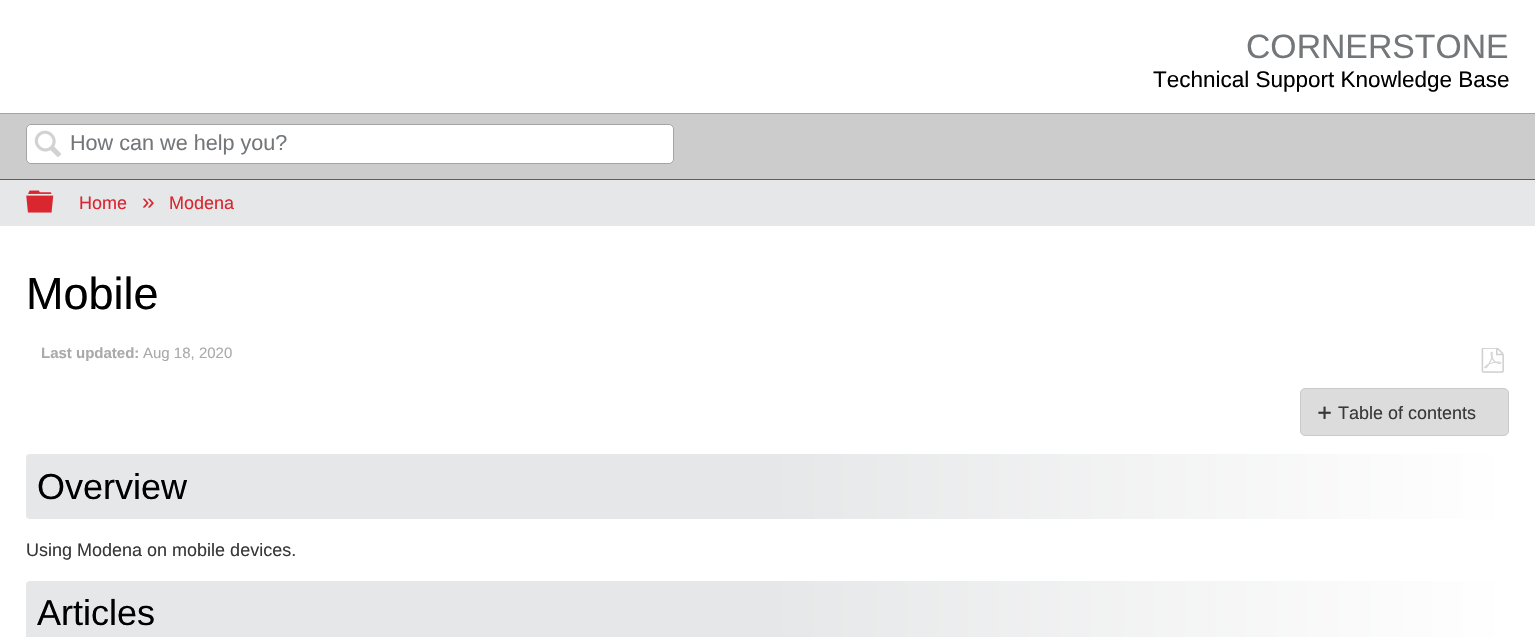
static SkFont makeFont(const char* family, int weight, float size, bool italic = false) {
  SkFontStyle style(weight, SkFontStyle::kNormal_Width,
    italic ? SkFontStyle::kItalic_Slant : SkFontStyle::kUpright_Slant);
  SkFont result(fontMgr->matchFamilyStyle(family, style), size);
  result.setSubpixel(true);
  return result;
}

static void text(SkCanvas* c, const char* s, float x, float y, const SkFont& font, SkColor color) {
  SkPaint ink(SkColor4f::FromColor(color));
  ink.setAntiAlias(true);
  c->drawString(s, x, y, font, ink);
}

static void box(SkCanvas* c, float l, float t, float r, float b, SkColor color) {
  SkPaint ink(SkColor4f::FromColor(color));
  ink.setAntiAlias(true);
  c->drawRect(SkRect::MakeLTRB(l, t, r, b), ink);
}

static void picture(SkCanvas* c, const char* path, float l, float t, float r, float b) {
  auto image = SkImages::DeferredFromEncodedData(SkData::MakeFromFileName(path));
  c->drawImageRect(image, SkRect::MakeLTRB(l, t, r, b), SkSamplingOptions());
}

void draw(SkCanvas* c) {
  SkPaint paint;
  paint.setAntiAlias(true);
  c->clear(0xffffffff);
  SkFont face1 = makeFont("Liberation Sans", 400, 33.75f);
  text(c, "CORNERSTONE", 1246, 58, face1, 0xff74777a);
  SkFont face2 = makeFont("Liberation Sans", 400, 22.5f);
  text(c, "Technical Support Knowledge Base", 1153, 87, face2, 0xff000000);
  box(c, 0, 114, 1535, 179, 0xffcccccc);
  box(c, 0, 113, 1535, 114, 0xffa4a4a4);
  paint.setColor(0xffffffff);
  c->drawRoundRect(SkRect::MakeLTRB(26.5f, 124.5f, 673.5f, 163.5f), 4.5f, 4.5f, paint);
  paint.setStyle(SkPaint::kStroke_Style);
  paint.setStrokeWidth(1);
  paint.setColor(0xffa4a4a4);
  c->drawRoundRect(SkRect::MakeLTRB(26.5f, 124.5f, 673.5f, 163.5f), 4.5f, 4.5f, paint);
  picture(c, "img_01.png", 34, 130, 61, 157);
  SkFont face3 = makeFont("Liberation Sans", 400, 21.6f);
  text(c, "How can we help you?", 70, 150, face3, 0xff74777a);
  box(c, 0, 180, 1535, 226, 0xffe6e7e8);
  box(c, 0, 179, 1535, 180, 0xffda262e);
  picture(c, "img_02.png", 26, 190, 54, 213);
  SkFont face4 = makeFont("Liberation Sans", 400, 18);
  text(c, "Home", 79, 209, face4, 0xffda262e);
  text(c, "»", 142, 209, face2, 0xffda262e);
  text(c, "Modena", 169, 209, face4, 0xffda262e);
  SkFont face5 = makeFont("Liberation Sans", 400, 45);
  text(c, "Mobile", 26, 309, face5, 0xff000000);
  SkFont face6 = makeFont("Liberation Sans", 700, 15);
  text(c, "Last updated:", 41, 358, face6, 0xffaaaaaa);
  SkFont face7 = makeFont("Liberation Sans", 400, 15);
  text(c, "Aug 18, 2020", 143, 358, face7, 0xffaaaaaa);
  picture(c, "img_03.png", 1481, 348, 1504, 373);
  paint.setStyle(SkPaint::kFill_Style);
  paint.setColor(0xffdcdcdc);
  c->drawRoundRect(SkRect::MakeLTRB(1300.5f, 388.5f, 1508.5f, 435.5f), 4.5f, 4.5f, paint);
  paint.setStyle(SkPaint::kStroke_Style);
  paint.setColor(0xffcacaca);
  c->drawRoundRect(SkRect::MakeLTRB(1300.5f, 388.5f, 1508.5f, 435.5f), 4.5f, 4.5f, paint);
  picture(c, "img_04.png", 1318, 406, 1331, 419);
  text(c, "Table of contents", 1338, 419, face4, 0xff383838);
  paint.setStyle(SkPaint::kFill_Style);
  {
    const SkColor colors[] = {0xffe6e7e8, 0xffe6e7e8, 0xffffffff};
    const float stops[] = {0, 0.5f, 1};
    const SkPoint ends[] = {{26, 486}, {1509, 486}};
    paint.setShader(SkGradientShader::MakeLinear(ends, colors, stops, 3, SkTileMode::kClamp));
    paint.setAlpha(255);
  }
  c->drawRoundRect(SkRect::MakeLTRB(26, 454, 1509, 519), 4, 4, paint);
  SkFont face8 = makeFont("Liberation Sans", 400, 36);
  text(c, "Overview", 37, 499, face8, 0xff000000);
  text(c, "Using Modena on mobile devices.", 26, 556, face4, 0xff383838);
  {
    const SkColor colors[] = {0xffe6e7e8, 0xffe6e7e8, 0xffffffff};
    const float stops[] = {0, 0.5f, 1};
    const SkPoint ends[] = {{26, 613}, {1509, 613}};
    paint.setShader(SkGradientShader::MakeLinear(ends, colors, stops, 3, SkTileMode::kClamp));
    paint.setAlpha(255);
  }
  c->drawRoundRect(SkRect::MakeLTRB(26, 581, 1509, 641), 4, 4, paint);
  text(c, "Articles", 37, 625, face8, 0xff000000);
}
